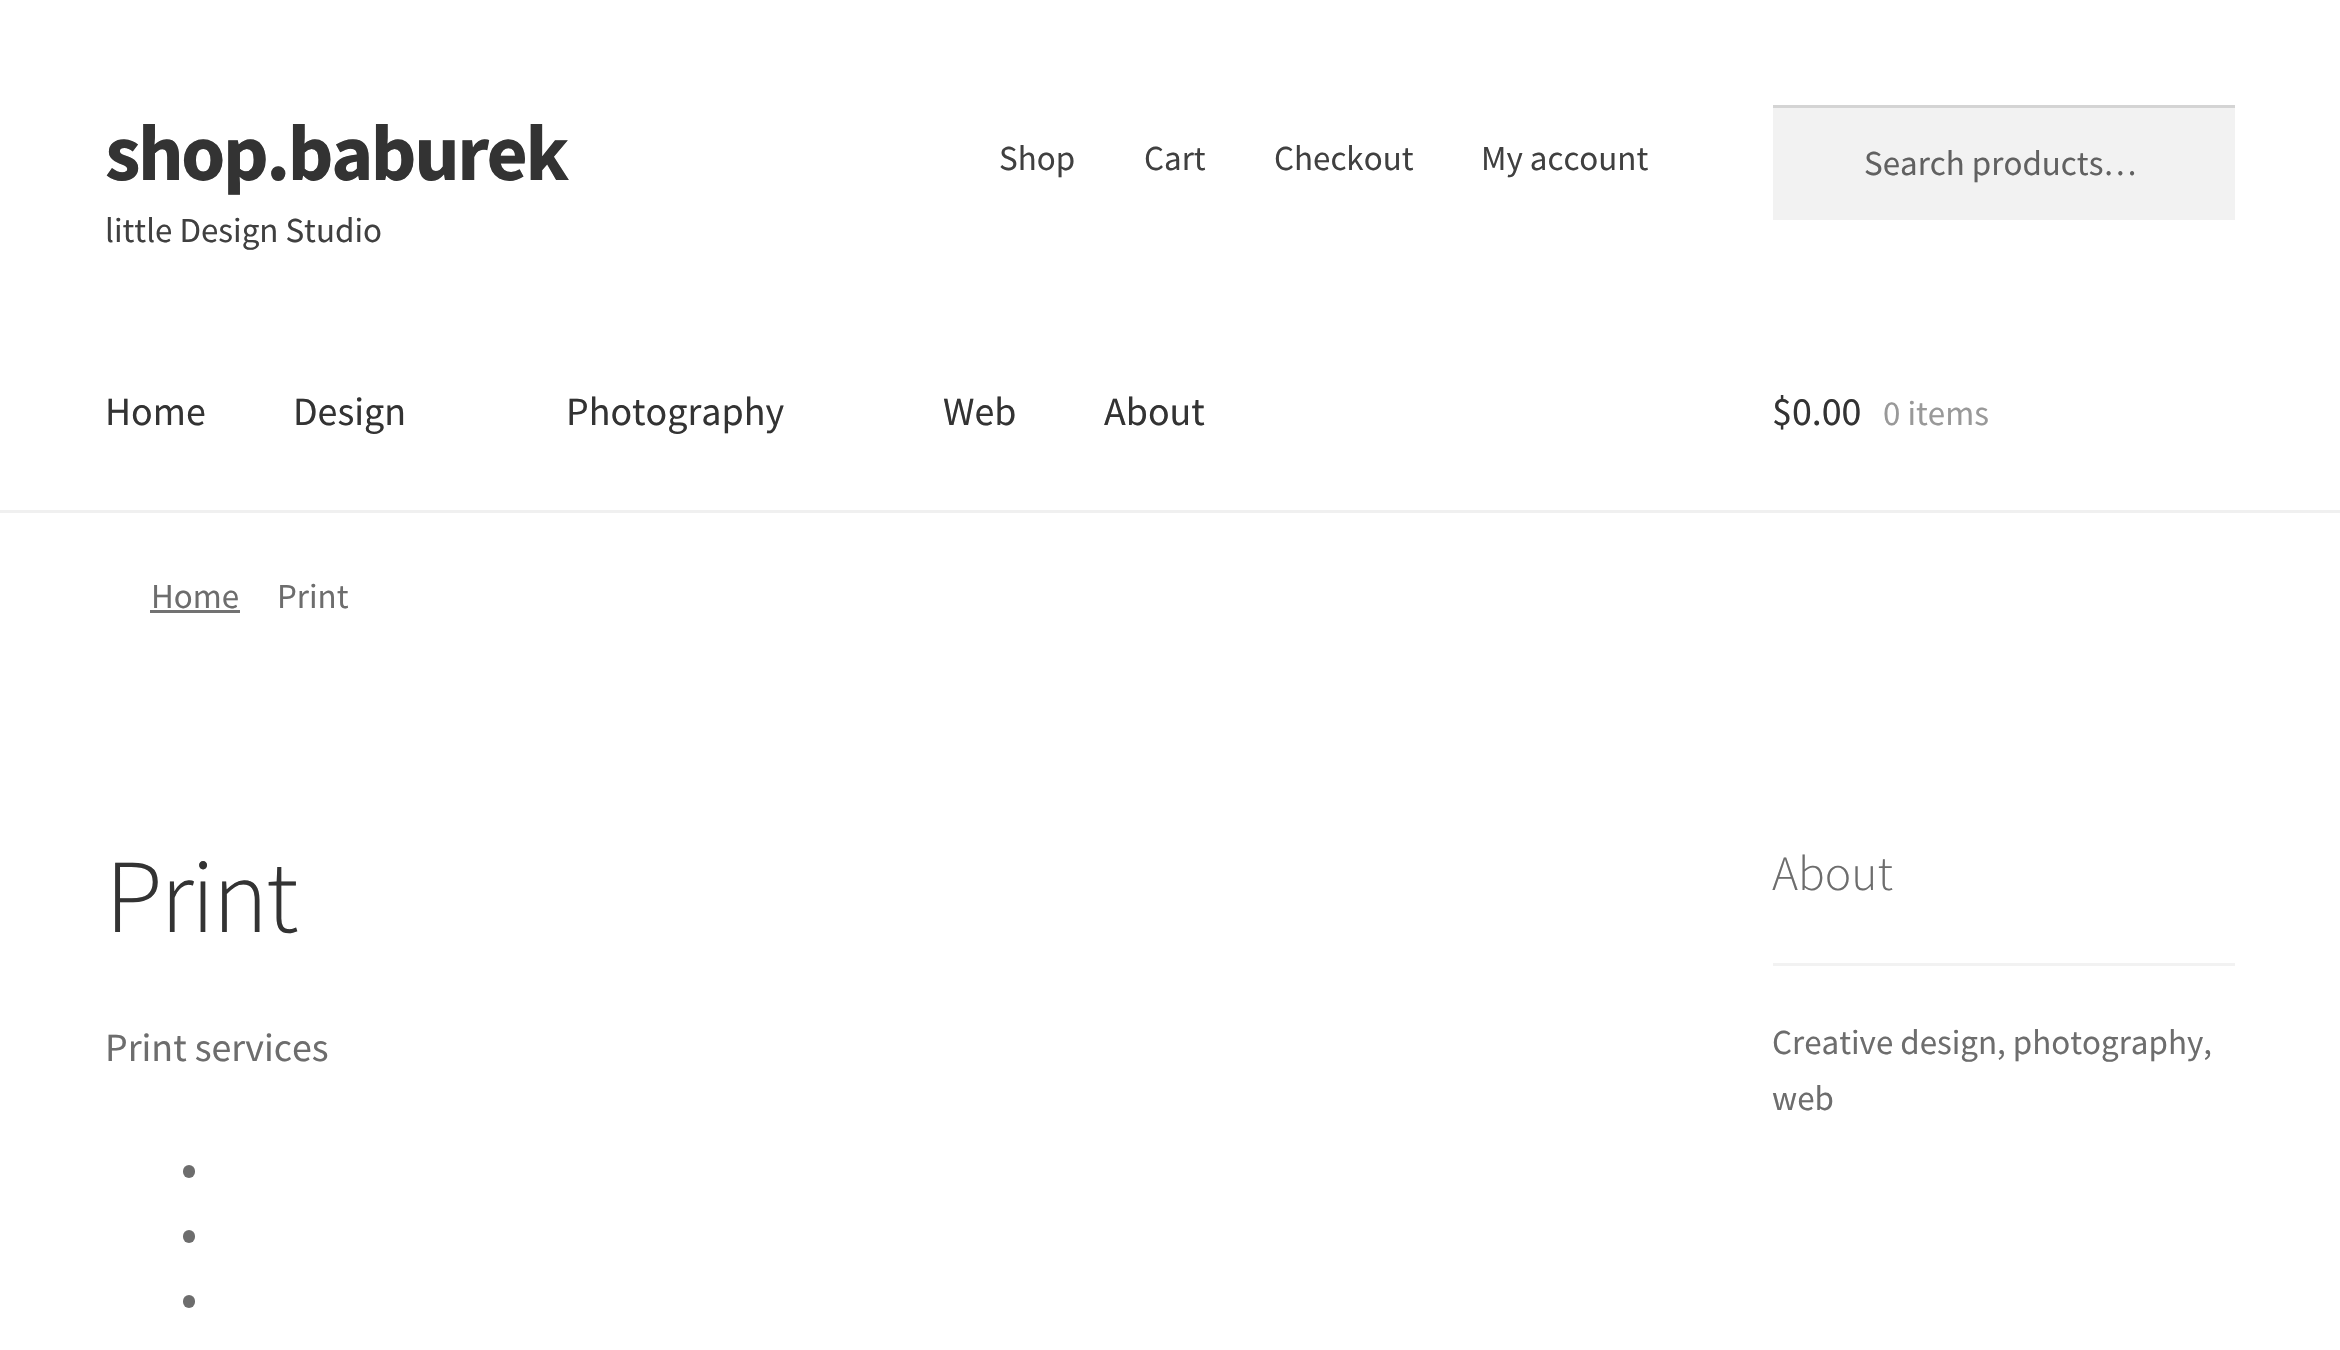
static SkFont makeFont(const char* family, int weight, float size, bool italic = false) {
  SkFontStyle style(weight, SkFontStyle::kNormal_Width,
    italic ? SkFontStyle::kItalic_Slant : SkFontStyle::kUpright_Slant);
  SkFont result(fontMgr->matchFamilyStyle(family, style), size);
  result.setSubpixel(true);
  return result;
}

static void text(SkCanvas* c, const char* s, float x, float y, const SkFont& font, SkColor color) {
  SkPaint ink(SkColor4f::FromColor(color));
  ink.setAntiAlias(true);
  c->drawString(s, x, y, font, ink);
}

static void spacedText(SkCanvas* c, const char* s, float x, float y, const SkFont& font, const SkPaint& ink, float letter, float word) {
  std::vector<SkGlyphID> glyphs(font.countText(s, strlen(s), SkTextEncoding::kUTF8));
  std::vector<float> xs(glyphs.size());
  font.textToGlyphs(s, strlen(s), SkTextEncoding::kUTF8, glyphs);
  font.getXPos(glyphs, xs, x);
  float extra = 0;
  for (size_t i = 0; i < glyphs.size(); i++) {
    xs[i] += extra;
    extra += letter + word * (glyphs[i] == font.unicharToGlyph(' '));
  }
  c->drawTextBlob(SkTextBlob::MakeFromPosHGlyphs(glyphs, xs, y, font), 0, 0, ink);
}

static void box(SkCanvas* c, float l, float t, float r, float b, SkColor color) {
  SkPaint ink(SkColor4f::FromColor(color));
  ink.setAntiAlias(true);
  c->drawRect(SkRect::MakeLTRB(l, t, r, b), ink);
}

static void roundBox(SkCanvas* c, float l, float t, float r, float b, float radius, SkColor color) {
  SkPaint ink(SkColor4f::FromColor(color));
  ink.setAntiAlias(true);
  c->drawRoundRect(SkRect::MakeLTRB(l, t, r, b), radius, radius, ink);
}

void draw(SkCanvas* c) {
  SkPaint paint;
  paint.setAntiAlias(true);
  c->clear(0xffffffff);
  box(c, 0, 510, 2340, 513, 0xfff0f0f0);
  SkFont face1 = makeFont("Source Sans Pro", 700, 80);
  paint.setColor(0xff333333);
  spacedText(c, "shop.baburek", 105, 180, face1, paint, -2.5f, 0);
  SkFont face2 = makeFont("Source Sans Pro", 400, 35);
  text(c, "little Design Studio", 105, 242, face2, 0xff404040);
  text(c, "Shop", 999, 170, face2, 0xff404040);
  text(c, "Cart", 1144, 170, face2, 0xff404040);
  text(c, "Checkout", 1274, 170, face2, 0xff404040);
  text(c, "My account", 1481, 170, face2, 0xff404040);
  box(c, 1773, 108, 2235, 220, 0xfff2f2f2);
  box(c, 1773, 105, 2235, 108, 0xffd4d4d4);
  text(c, "Search products…", 1864, 175, face2, 0xff616161);
  SkFont face3 = makeFont("Source Sans Pro", 400, 40);
  text(c, "Home", 105, 425, face3, 0xff333333);
  text(c, "Design", 293, 425, face3, 0xff333333);
  text(c, "Photography", 566, 425, face3, 0xff333333);
  text(c, "Web", 943, 425, face3, 0xff333333);
  text(c, "About", 1104, 425, face3, 0xff333333);
  text(c, "$0.00", 1772, 425, face3, 0xff333333);
  text(c, "0 items", 1883, 425, face2, 0xff999999);
  text(c, "Home", 151, 608, face2, 0xff6d6d6d);
  box(c, 150, 610, 240, 613, 0xff727272);
  text(c, "Print", 277, 608, face2, 0xff6d6d6d);
  SkFont face4 = makeFont("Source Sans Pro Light", 300, 105);
  spacedText(c, "Print", 105, 932, face4, paint, -2.5f, 0);
  text(c, "Print services", 105, 1061, face3, 0xff6d6d6d);
  roundBox(c, 183, 1165, 195, 1178, 6, 0xff6d6d6d);
  roundBox(c, 183, 1230, 195, 1243, 6, 0xff6d6d6d);
  roundBox(c, 183, 1295, 195, 1308, 6, 0xff6d6d6d);
  box(c, 1773, 963, 2235, 966, 0xfff2f2f2);
  SkFont face5 = makeFont("Source Sans Pro Light", 300, 49.5f);
  text(c, "About", 1772, 890, face5, 0xff6d6d6d);
  text(c, "Creative design, photography,", 1772, 1054, face2, 0xff6d6d6d);
  text(c, "web", 1772, 1110, face2, 0xff6d6d6d);
}
